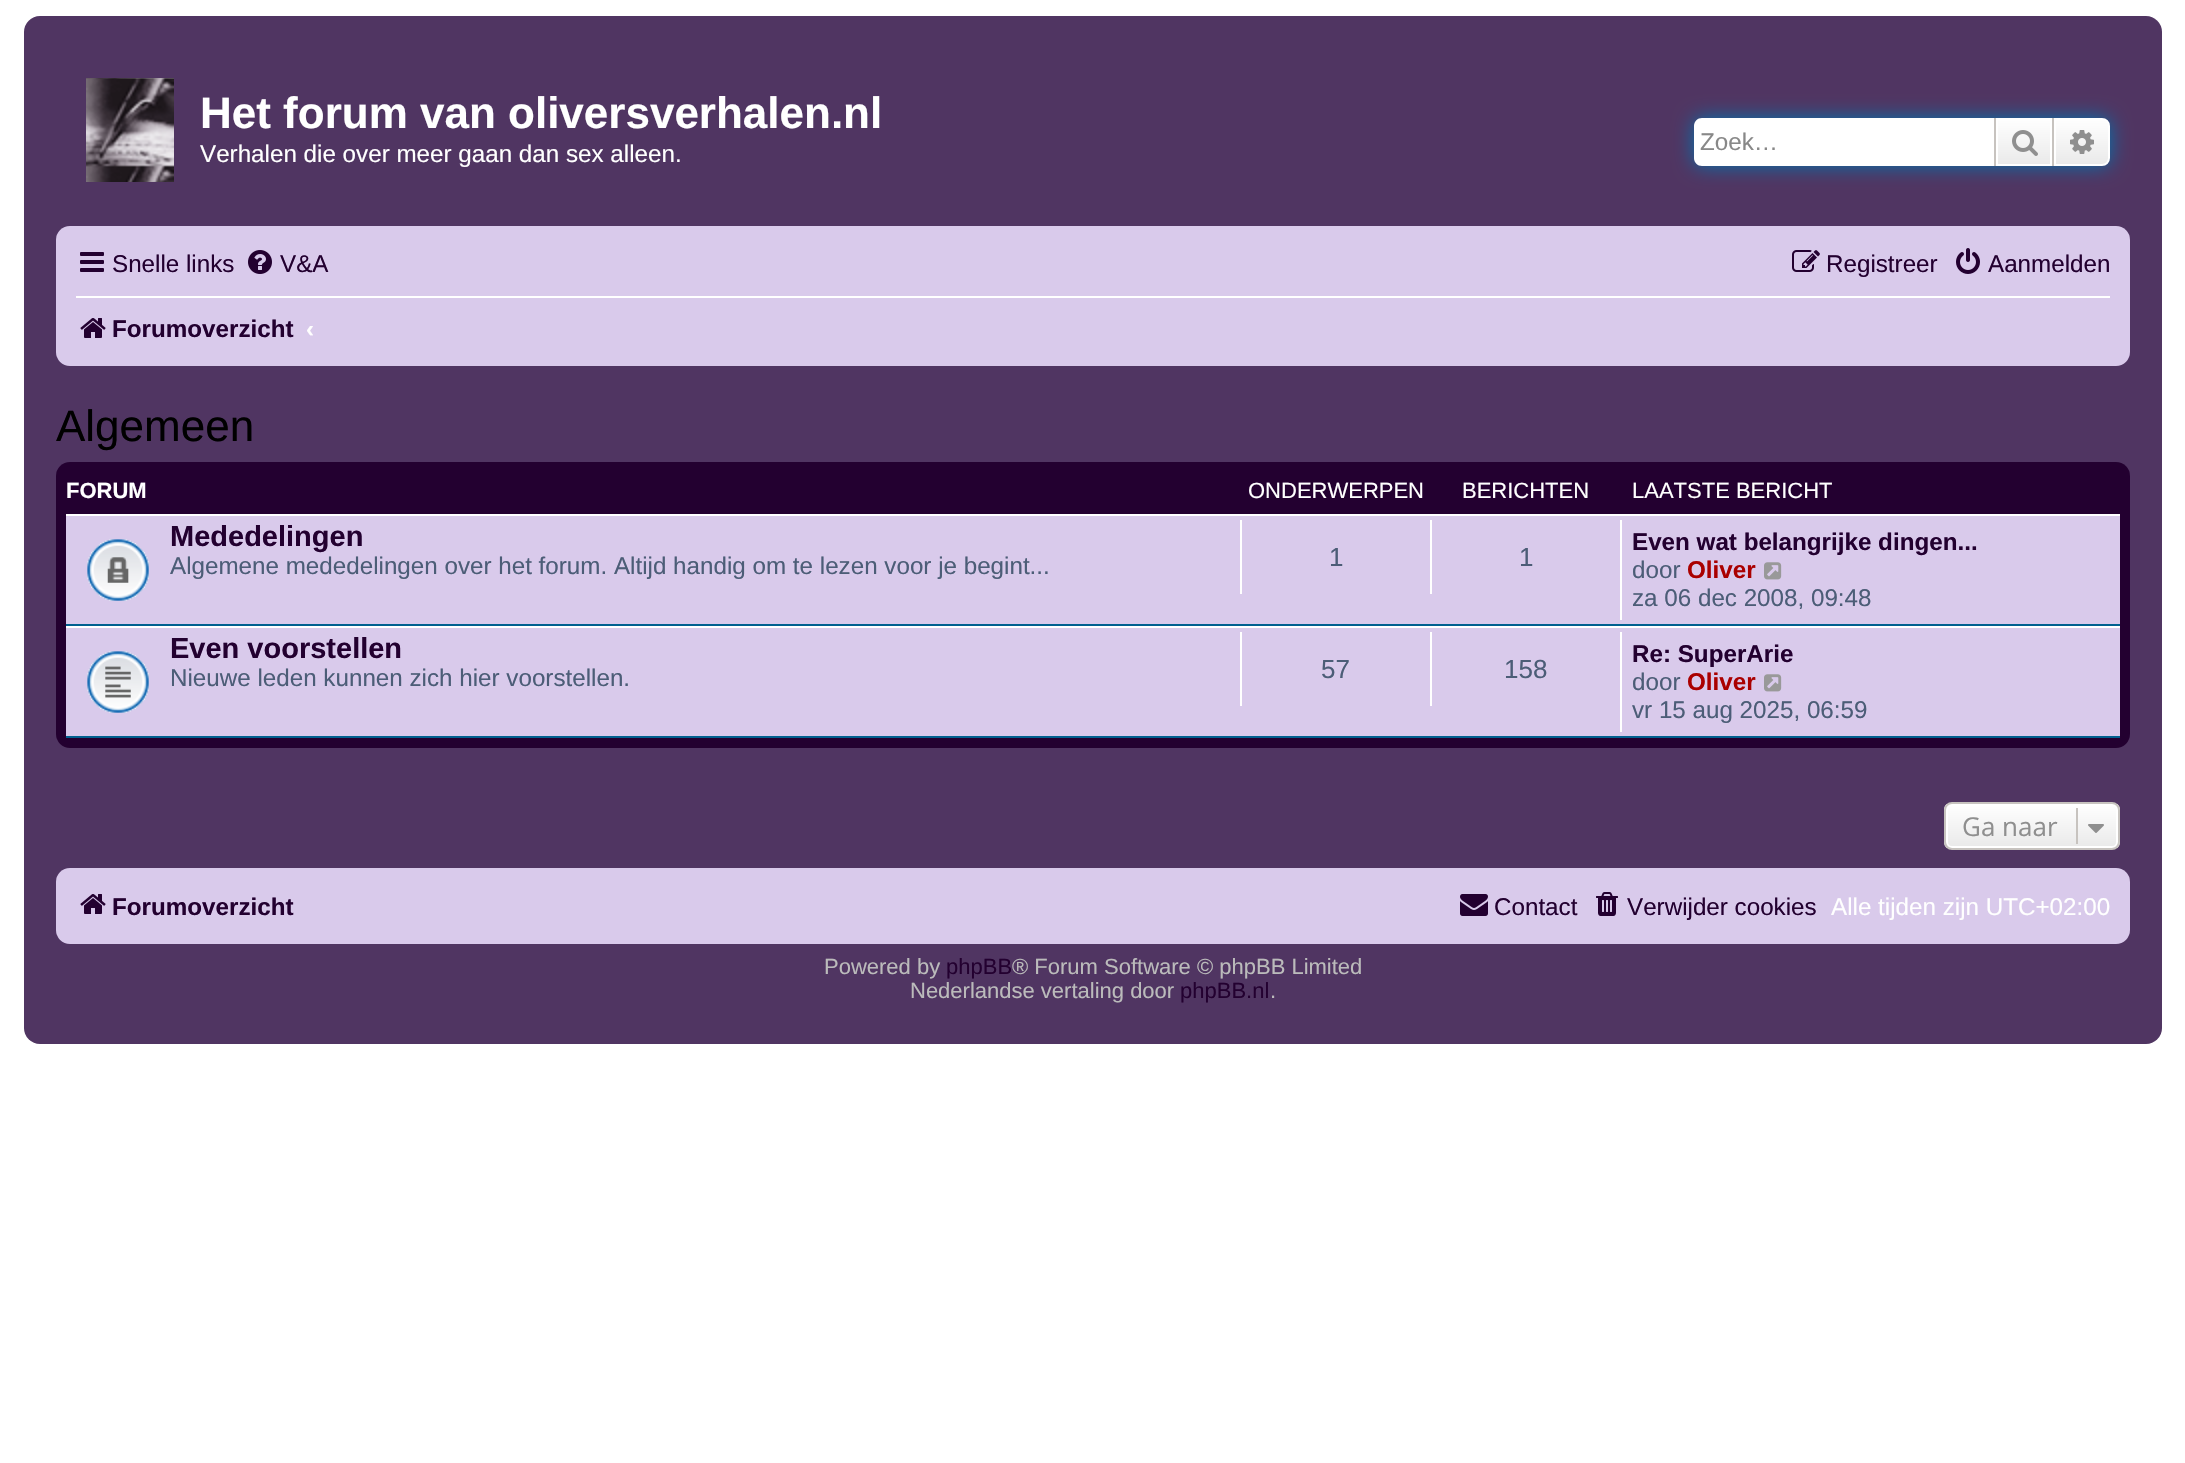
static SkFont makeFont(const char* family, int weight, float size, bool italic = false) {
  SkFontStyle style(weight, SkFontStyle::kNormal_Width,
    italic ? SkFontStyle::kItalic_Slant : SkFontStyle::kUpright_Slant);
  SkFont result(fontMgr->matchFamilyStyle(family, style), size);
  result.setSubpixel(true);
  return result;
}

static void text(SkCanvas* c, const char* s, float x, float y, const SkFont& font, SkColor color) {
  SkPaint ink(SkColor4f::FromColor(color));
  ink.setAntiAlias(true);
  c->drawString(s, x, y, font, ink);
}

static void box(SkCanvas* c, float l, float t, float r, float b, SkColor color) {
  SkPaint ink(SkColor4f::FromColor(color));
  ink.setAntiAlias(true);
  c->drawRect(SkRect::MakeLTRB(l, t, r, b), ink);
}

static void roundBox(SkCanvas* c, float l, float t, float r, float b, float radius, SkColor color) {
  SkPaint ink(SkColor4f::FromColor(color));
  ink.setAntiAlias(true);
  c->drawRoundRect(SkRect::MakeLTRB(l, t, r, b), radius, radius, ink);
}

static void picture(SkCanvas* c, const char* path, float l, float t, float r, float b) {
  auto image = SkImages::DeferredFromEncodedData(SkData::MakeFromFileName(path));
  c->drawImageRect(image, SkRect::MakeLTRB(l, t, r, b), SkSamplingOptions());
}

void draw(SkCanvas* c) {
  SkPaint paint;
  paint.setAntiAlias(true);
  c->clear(0xffffffff);
  roundBox(c, 24, 16, 2162, 1044, 16, 0xff503562);
  picture(c, "img_01.png", 86, 78, 174, 182);
  SkFont face1 = makeFont("Liberation Sans", 700, 44);
  text(c, "Het forum van oliversverhalen.nl", 200, 128, face1, 0xffffffff);
  SkFont face2 = makeFont("Liberation Sans", 400, 24.2f);
  text(c, "Verhalen die over meer gaan dan sex alleen.", 200, 162, face2, 0xffffffff);
  paint.setColor(0xff0075b0);
  paint.setMaskFilter(SkMaskFilter::MakeBlur(kNormal_SkBlurStyle, 10));
  c->drawRoundRect(SkRect::MakeLTRB(1694, 118, 2110, 166), 8, 8, paint);
  paint.setMaskFilter(nullptr);
  paint.setColor(0xffffffff);
  c->drawPath(SkPathBuilder().moveTo(1702, 118).lineTo(1994, 118).lineTo(1994, 166).lineTo(1702, 166).cubicTo(1697.5f, 166, 1694, 162.5f, 1694, 158).lineTo(1694, 126).cubicTo(1694, 121.5f, 1697.5f, 118, 1702, 118).close().detach(), paint);
  text(c, "Zoek…", 1700, 150, face2, 0xff888888);
  {
    const SkColor colors[] = {0xffffffff, 0xffe9e9e9};
    const float stops[] = {0, 1};
    const SkPoint ends[] = {{2024, 118}, {2024, 166}};
    paint.setShader(SkGradientShader::MakeLinear(ends, colors, stops, 2, SkTileMode::kClamp));
    paint.setAlpha(255);
  }
  c->drawRect(SkRect::MakeLTRB(1998, 120, 2050, 164), paint);
  paint.setStyle(SkPaint::kStroke_Style);
  paint.setStrokeWidth(2);
  paint.setShader(nullptr);
  paint.setColor(0xffffffff);
  c->drawRect(SkRect::MakeLTRB(1997, 119, 2051, 165), paint);
  box(c, 2052, 118, 2054, 166, 0xffc7c3bf);
  box(c, 1994, 118, 1996, 166, 0xffc7c3bf);
  picture(c, "img_02.png", 2012, 130, 2038, 156);
  paint.setStyle(SkPaint::kFill_Style);
  {
    const SkColor colors[] = {0xffffffff, 0xffe9e9e9};
    const float stops[] = {0, 1};
    const SkPoint ends[] = {{2082, 118}, {2082, 166}};
    paint.setShader(SkGradientShader::MakeLinear(ends, colors, stops, 2, SkTileMode::kClamp));
    paint.setAlpha(255);
  }
  c->drawPath(SkPathBuilder().moveTo(2055, 119).lineTo(2102, 119).cubicTo(2106, 119, 2109, 122, 2109, 126).lineTo(2109, 158).cubicTo(2109, 162, 2106, 165, 2102, 165).lineTo(2055, 165).close().detach(), paint);
  paint.setStyle(SkPaint::kStroke_Style);
  paint.setShader(nullptr);
  paint.setColor(0xffffffff);
  c->drawPath(SkPathBuilder().moveTo(2055, 119).lineTo(2102, 119).cubicTo(2106, 119, 2109, 122, 2109, 126).lineTo(2109, 158).cubicTo(2109, 162, 2106, 165, 2102, 165).lineTo(2055, 165).close().detach(), paint);
  picture(c, "img_03.png", 2070, 130, 2094, 154);
  roundBox(c, 56, 226, 2130, 366, 14, 0xffd9caeb);
  picture(c, "img_04.png", 80, 252, 104, 272);
  text(c, "Snelle links", 112, 272, face2, 0xff230030);
  picture(c, "img_05.png", 248, 250, 272, 274);
  text(c, "V&A", 280, 272, face2, 0xff230030);
  picture(c, "img_06.png", 1792, 250, 1820, 272);
  text(c, "Registreer", 1826, 272, face2, 0xff230030);
  picture(c, "img_07.png", 1956, 248, 1980, 274);
  text(c, "Aanmelden", 1988, 272, face2, 0xff230030);
  box(c, 76, 296, 2110, 298, 0xffffffff);
  picture(c, "img_08.png", 80, 318, 106, 338);
  SkFont face3 = makeFont("Liberation Sans", 700, 24.2f);
  text(c, "Forumoverzicht", 112, 337, face3, 0xff230030);
  text(c, "‹", 306, 337, face3, 0xffffffff);
  SkFont face4 = makeFont("Liberation Sans", 400, 44);
  text(c, "Algemeen", 56, 441, face4, 0xff000000);
  roundBox(c, 56, 462, 2130, 748, 14, 0xff230030);
  SkFont face5 = makeFont("Liberation Sans", 700, 22);
  text(c, "FORUM", 66, 498, face5, 0xffffffff);
  SkFont face6 = makeFont("Liberation Sans", 400, 22);
  text(c, "ONDERWERPEN", 1248, 498, face6, 0xffffffff);
  text(c, "BERICHTEN", 1462, 498, face6, 0xffffffff);
  text(c, "LAATSTE BERICHT", 1632, 498, face6, 0xffffffff);
  box(c, 66, 516, 2120, 736, 0xffd9caeb);
  box(c, 66, 514, 2120, 516, 0xffffffff);
  box(c, 66, 624, 2120, 626, 0xff00608f);
  picture(c, "img_09.png", 87, 539, 149, 601);
  SkFont face7 = makeFont("Liberation Sans", 700, 29);
  text(c, "Mededelingen", 170, 546, face7, 0xff230030);
  text(c, "Algemene mededelingen over het forum. Altijd handig om te lezen voor je begint...", 170, 574, face2, 0xff4c5d77);
  box(c, 1240, 520, 1242, 594, 0xffffffff);
  SkFont face8 = makeFont("Liberation Sans", 400, 26);
  text(c, "1", 1329, 566, face8, 0xff4c5d77);
  box(c, 1430, 520, 1432, 594, 0xffffffff);
  text(c, "1", 1519, 566, face8, 0xff4c5d77);
  box(c, 1620, 520, 1622, 620, 0xffffffff);
  text(c, "Even wat belangrijke dingen...", 1632, 550, face3, 0xff230030);
  text(c, "door", 1632, 578, face2, 0xff4c5d77);
  text(c, "Oliver", 1687, 578, face3, 0xffaa0000);
  picture(c, "img_10.png", 1764, 562, 1782, 580);
  text(c, "za 06 dec 2008, 09:48", 1632, 606, face2, 0xff4c5d77);
  box(c, 66, 626, 2120, 628, 0xffffffff);
  box(c, 66, 736, 2120, 738, 0xff00608f);
  picture(c, "img_11.png", 87, 651, 149, 713);
  text(c, "Even voorstellen", 170, 658, face7, 0xff230030);
  text(c, "Nieuwe leden kunnen zich hier voorstellen.", 170, 686, face2, 0xff4c5d77);
  box(c, 1240, 632, 1242, 706, 0xffffffff);
  text(c, "57", 1321, 678, face8, 0xff4c5d77);
  box(c, 1430, 632, 1432, 706, 0xffffffff);
  text(c, "158", 1504, 678, face8, 0xff4c5d77);
  box(c, 1620, 632, 1622, 732, 0xffffffff);
  text(c, "Re: SuperArie", 1632, 662, face3, 0xff230030);
  text(c, "door", 1632, 690, face2, 0xff4c5d77);
  text(c, "Oliver", 1687, 690, face3, 0xffaa0000);
  picture(c, "img_10.png", 1764, 674, 1782, 692);
  text(c, "vr 15 aug 2025, 06:59", 1632, 718, face2, 0xff4c5d77);
  c->save();
  c->clipPath(SkPathBuilder().moveTo(1952, 802).lineTo(2112, 802).cubicTo(2116.5f, 802, 2120, 805.5f, 2120, 810).lineTo(2120, 842).cubicTo(2120, 846.5f, 2116.5f, 850, 2112, 850).lineTo(1952, 850).cubicTo(1947.5f, 850, 1944, 846.5f, 1944, 842).lineTo(1944, 810).cubicTo(1944, 805.5f, 1947.5f, 802, 1952, 802).close().detach(), true);
  paint.setStyle(SkPaint::kFill_Style);
  {
    const SkColor colors[] = {0xffffffff, 0xffe9e9e9};
    const float stops[] = {0, 1};
    const SkPoint ends[] = {{2032, 804}, {2032, 848}};
    paint.setShader(SkGradientShader::MakeLinear(ends, colors, stops, 2, SkTileMode::kClamp));
    paint.setAlpha(255);
  }
  c->drawRect(SkRect::MakeLTRB(1944, 804, 2120, 848), paint);
  c->restore();
  paint.setStyle(SkPaint::kStroke_Style);
  paint.setShader(nullptr);
  paint.setColor(0xffffffff);
  c->drawRoundRect(SkRect::MakeLTRB(1947, 805, 2117, 847), 5, 5, paint);
  paint.setColor(0xffc7c3bf);
  c->drawRoundRect(SkRect::MakeLTRB(1945, 803, 2119, 849), 7, 7, paint);
  SkFont face9 = makeFont("Open Sans", 400, 26);
  text(c, "Ga naar", 1962, 836, face9, 0xff8f8f8f);
  box(c, 2076, 808, 2078, 844, 0xffc7c3bf);
  picture(c, "img_12.png", 2088, 824, 2104, 833);
  roundBox(c, 56, 868, 2130, 944, 14, 0xffd9caeb);
  picture(c, "img_08.png", 80, 894, 106, 914);
  text(c, "Forumoverzicht", 112, 915, face3, 0xff230030);
  picture(c, "img_13.png", 1460, 894, 1488, 916);
  text(c, "Contact", 1494, 915, face2, 0xff230030);
  picture(c, "img_14.png", 1596, 892, 1618, 916);
  text(c, "Verwijder cookies", 1627, 915, face2, 0xff230030);
  text(c, "Alle tijden zijn UTC+02:00", 1831, 915, face2, 0xffffffff);
  text(c, "Powered by", 824, 974, face6, 0xffbbbbbb);
  text(c, "phpBB", 946, 974, face6, 0xff230030);
  text(c, "® Forum Software © phpBB Limited", 1012, 974, face6, 0xffbbbbbb);
  text(c, "Nederlandse vertaling door", 910, 998, face6, 0xffbbbbbb);
  text(c, "phpBB.nl", 1180, 998, face6, 0xff230030);
  text(c, ".", 1270, 998, face6, 0xffbbbbbb);
}
